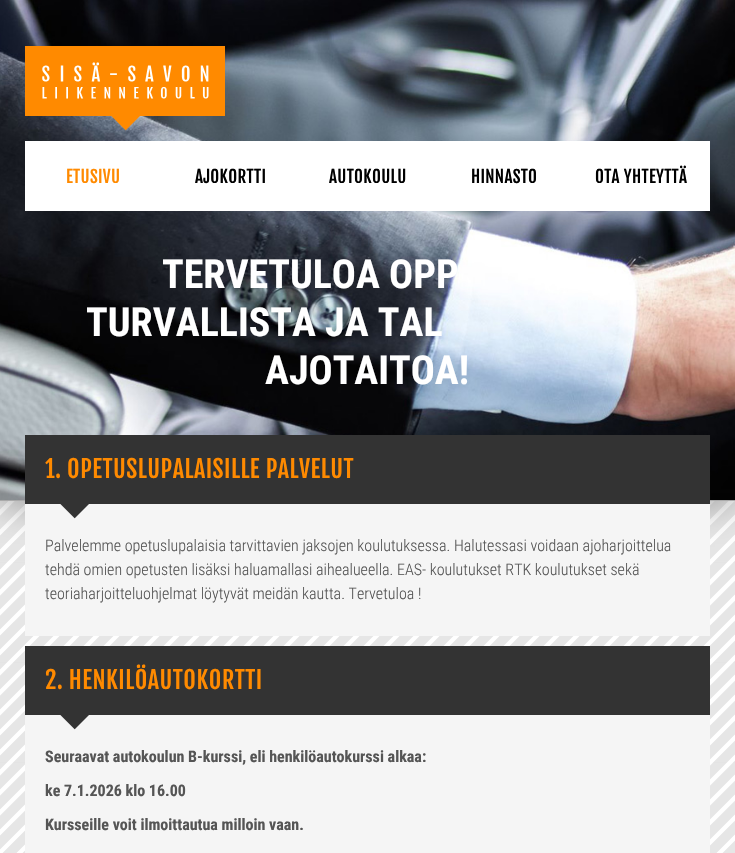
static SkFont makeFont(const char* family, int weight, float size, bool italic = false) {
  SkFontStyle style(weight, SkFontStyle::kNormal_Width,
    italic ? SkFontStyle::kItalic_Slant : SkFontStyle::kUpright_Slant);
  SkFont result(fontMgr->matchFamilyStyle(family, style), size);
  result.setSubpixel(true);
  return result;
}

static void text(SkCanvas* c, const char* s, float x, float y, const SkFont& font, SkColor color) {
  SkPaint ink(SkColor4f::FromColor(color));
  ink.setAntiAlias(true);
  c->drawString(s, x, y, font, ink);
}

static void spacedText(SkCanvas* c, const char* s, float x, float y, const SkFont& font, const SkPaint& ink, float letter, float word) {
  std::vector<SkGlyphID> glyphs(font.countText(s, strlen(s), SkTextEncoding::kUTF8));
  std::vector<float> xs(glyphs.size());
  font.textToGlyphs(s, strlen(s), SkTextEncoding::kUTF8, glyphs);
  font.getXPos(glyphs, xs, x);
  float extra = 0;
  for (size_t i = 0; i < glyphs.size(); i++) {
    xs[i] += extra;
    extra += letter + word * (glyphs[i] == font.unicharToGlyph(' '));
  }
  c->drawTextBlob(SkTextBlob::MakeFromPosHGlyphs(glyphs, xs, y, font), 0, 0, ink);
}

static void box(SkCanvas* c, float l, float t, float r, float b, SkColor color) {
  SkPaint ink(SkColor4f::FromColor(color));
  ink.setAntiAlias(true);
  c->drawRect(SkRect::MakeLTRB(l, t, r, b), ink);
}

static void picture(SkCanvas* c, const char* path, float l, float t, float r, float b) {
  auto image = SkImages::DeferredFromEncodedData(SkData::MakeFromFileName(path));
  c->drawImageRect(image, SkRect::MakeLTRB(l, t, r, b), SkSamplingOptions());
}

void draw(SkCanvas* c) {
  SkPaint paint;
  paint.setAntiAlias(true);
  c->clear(0xffffffff);
  picture(c, "img_01.png", 0, 501, 735, 853);
  paint.setColor(0xff888888);
  paint.setMaskFilter(SkMaskFilter::MakeBlur(kNormal_SkBlurStyle, 20));
  c->drawRect(SkRect::MakeLTRB(0, 0, 735, 501), paint);
  paint.setMaskFilter(nullptr);
  box(c, 0, 500, 735, 501, 0xffaaaaaa);
  picture(c, "img_02.png", 0, 0, 735, 500);
  picture(c, "img_03.png", 111, 116, 140, 131);
  box(c, 25, 46, 225, 116, 0xffff8a00);
  picture(c, "img_04.png", 42, 62, 209, 99);
  box(c, 25, 141, 710, 211, 0xffffffff);
  SkFont face1 = makeFont("Fjalla One", 400, 17);
  paint.setColor(0xffff8a00);
  spacedText(c, "ETUSIVU", 66, 183, face1, paint, 0.3f, 0);
  paint.setColor(0xff000000);
  spacedText(c, "AJOKORTTI", 195, 183, face1, paint, 0.3f, 0);
  spacedText(c, "AUTOKOULU", 329, 183, face1, paint, 0.3f, 0);
  spacedText(c, "HINNASTO", 471, 183, face1, paint, 0.3f, 0);
  spacedText(c, "OTA YHTEYTTÄ", 595, 183, face1, paint, 0.3f, 0);
  SkFont face2 = makeFont("Roboto Condensed", 700, 40);
  text(c, "TERVETULOA OPP", 162, 288, face2, 0xffffffff);
  text(c, "TURVALLISTA JA TAL", 86, 336, face2, 0xffffffff);
  text(c, "AJOTAITOA!", 265, 384, face2, 0xffffffff);
  box(c, 25, 504, 710, 636, 0xfff5f5f5);
  box(c, 25, 435, 710, 504, 0xff333333);
  SkFont face3 = makeFont("Fjalla One", 400, 24);
  paint.setColor(0xffff8a00);
  spacedText(c, "1. OPETUSLUPALAISILLE PALVELUT", 45, 478, face3, paint, 0.5f, 0);
  picture(c, "img_05.png", 60, 504, 89, 519);
  SkFont face4 = makeFont("Roboto Condensed", 300, 16);
  text(c, "Palvelemme opetuslupalaisia tarvittavien jaksojen koulutuksessa. Halutessasi voidaan ajoharjoittelua", 45, 551, face4, 0xff555555);
  text(c, "tehdä omien opetusten lisäksi haluamallasi aihealueella. EAS- koulutukset RTK koulutukset sekä", 45, 575, face4, 0xff555555);
  text(c, "teoriaharjoitteluohjelmat löytyvät meidän kautta. Tervetuloa !", 45, 599, face4, 0xff555555);
  box(c, 25, 715, 710, 853, 0xfff5f5f5);
  box(c, 25, 646, 710, 715, 0xff333333);
  spacedText(c, "2. HENKILÖAUTOKORTTI", 45, 689, face3, paint, 0.5f, 0);
  picture(c, "img_05.png", 60, 715, 89, 730);
  SkFont face5 = makeFont("Roboto Condensed", 700, 16);
  text(c, "Seuraavat autokoulun B-kurssi, eli henkilöautokurssi alkaa:", 45, 762, face5, 0xff555555);
  text(c, "ke 7.1.2026 klo 16.00", 45, 796, face5, 0xff555555);
  text(c, "Kursseille voit ilmoittautua milloin vaan.", 45, 830, face5, 0xff555555);
}
